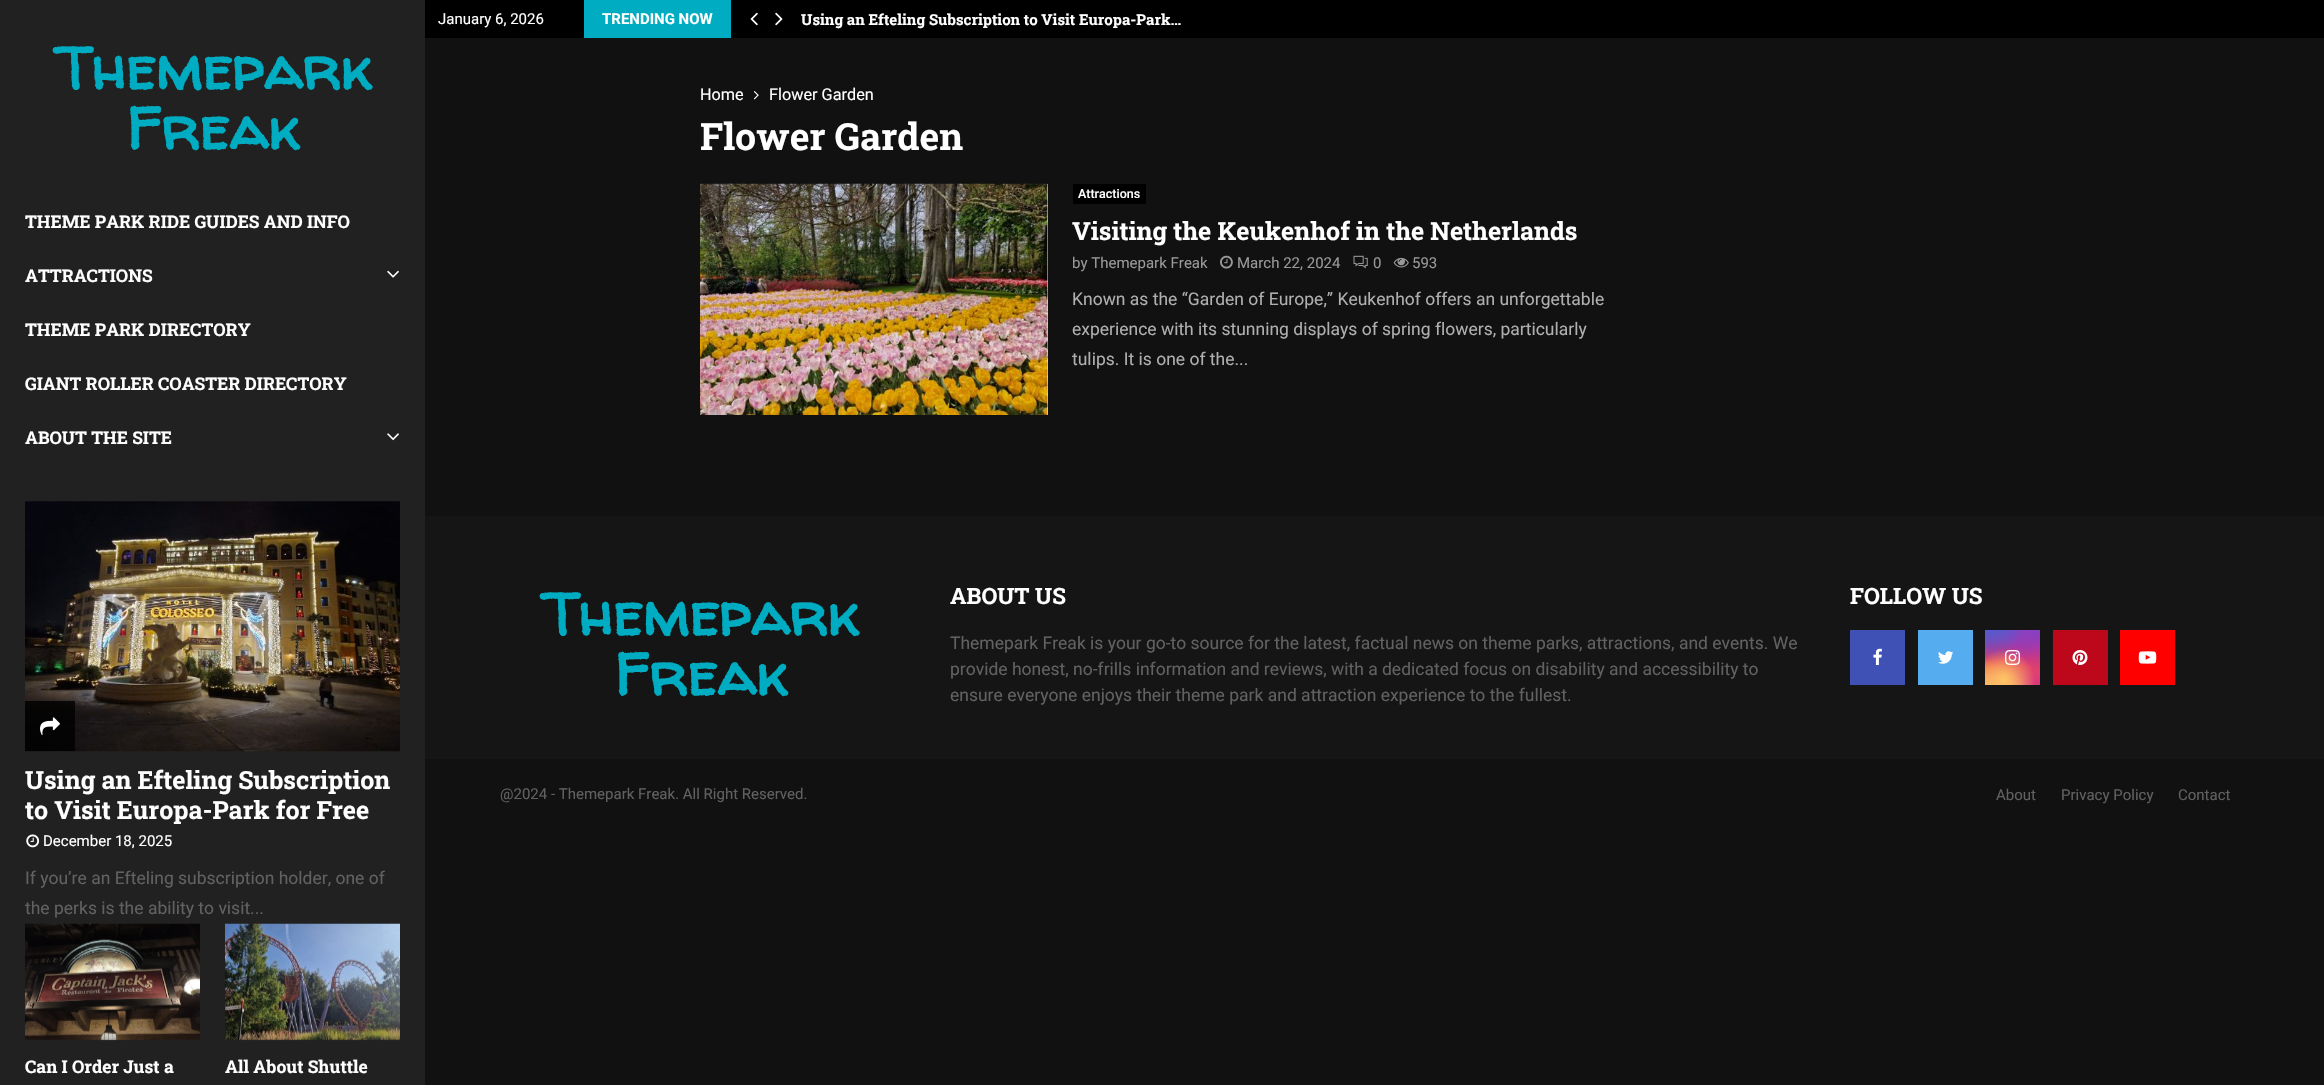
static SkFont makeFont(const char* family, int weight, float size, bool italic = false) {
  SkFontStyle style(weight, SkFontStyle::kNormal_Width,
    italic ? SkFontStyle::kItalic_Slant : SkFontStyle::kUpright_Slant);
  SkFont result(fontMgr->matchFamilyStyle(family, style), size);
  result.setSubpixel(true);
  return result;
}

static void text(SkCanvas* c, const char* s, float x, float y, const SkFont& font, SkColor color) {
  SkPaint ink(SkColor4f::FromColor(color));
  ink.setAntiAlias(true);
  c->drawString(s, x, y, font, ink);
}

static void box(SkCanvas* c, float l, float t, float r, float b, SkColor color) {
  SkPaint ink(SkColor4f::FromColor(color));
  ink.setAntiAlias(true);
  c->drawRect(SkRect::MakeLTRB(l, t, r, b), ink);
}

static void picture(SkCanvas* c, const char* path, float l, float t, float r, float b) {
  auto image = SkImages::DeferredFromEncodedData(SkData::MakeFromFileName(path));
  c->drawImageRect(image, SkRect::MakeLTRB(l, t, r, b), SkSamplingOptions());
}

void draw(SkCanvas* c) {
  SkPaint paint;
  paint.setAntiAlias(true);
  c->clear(0xff111111);
  box(c, 0, 0, 425, 1085, 0xff212121);
  SkFont face1 = makeFont("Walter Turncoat", 700, 60);
  text(c, "Themepark", 55, 90, face1, 0xff00acc1);
  text(c, "Freak", 126, 150, face1, 0xff00acc1);
  SkFont face2 = makeFont("Roboto Slab", 700, 17.5f);
  text(c, "THEME PARK RIDE GUIDES AND INFO", 25, 228, face2, 0xffffffff);
  text(c, "ATTRACTIONS", 25, 282, face2, 0xffffffff);
  picture(c, "img_01.png", 387, 270, 399, 278);
  text(c, "THEME PARK DIRECTORY", 25, 336, face2, 0xffffffff);
  text(c, "GIANT ROLLER COASTER DIRECTORY", 25, 390, face2, 0xffffffff);
  text(c, "ABOUT THE SITE", 25, 444, face2, 0xffffffff);
  picture(c, "img_02.png", 387, 433, 399, 441);
  picture(c, "img_03.png", 25, 501, 400, 752);
  box(c, 25, 701, 75, 751, 0xcc000000);
  picture(c, "img_04.png", 40, 717, 60, 736);
  SkFont face3 = makeFont("Roboto Slab", 700, 25);
  text(c, "Using an Efteling Subscription", 25, 789, face3, 0xffffffff);
  text(c, "to Visit Europa-Park for Free", 25, 819, face3, 0xffffffff);
  picture(c, "img_05.png", 26, 834, 40, 848);
  SkFont face4 = makeFont("Roboto", 400, 15);
  text(c, "December 18, 2025", 43, 846, face4, 0xffffffff);
  SkFont face5 = makeFont("Roboto", 400, 17.5f);
  text(c, "If you’re an Efteling subscription holder, one of", 25, 884, face5, 0xff616161);
  text(c, "the perks is the ability to visit...", 25, 914, face5, 0xff616161);
  picture(c, "img_06.png", 25, 923, 200, 1041);
  text(c, "Can I Order Just a", 25, 1073, face2, 0xffffffff);
  picture(c, "img_07.png", 225, 923, 400, 1041);
  text(c, "All About Shuttle", 225, 1073, face2, 0xffffffff);
  box(c, 425, 0, 2324, 38, 0xff000000);
  text(c, "January 6, 2026", 438, 24, face4, 0xffffffff);
  box(c, 584, 0, 731, 38, 0xff00acc1);
  SkFont face6 = makeFont("Roboto", 700, 15);
  text(c, "TRENDING NOW", 602, 24, face6, 0xffffffff);
  picture(c, "img_08.png", 750, 12, 758, 26);
  picture(c, "img_09.png", 775, 12, 783, 26);
  SkFont face7 = makeFont("Roboto Slab", 700, 15);
  text(c, "Using an Efteling Subscription to Visit Europa-Park…", 801, 25, face7, 0xffffffff);
  SkFont face8 = makeFont("Roboto", 400, 16.25f);
  text(c, "Home", 700, 100, face8, 0xffffffff);
  picture(c, "img_10.png", 753, 91, 759, 100);
  text(c, "Flower Garden", 769, 100, face8, 0xffffffff);
  SkFont face9 = makeFont("Roboto Slab", 700, 37.5f);
  text(c, "Flower Garden", 700, 150, face9, 0xffffffff);
  box(c, 1047, 184, 1048, 415, 0xfff5f5f5);
  picture(c, "img_11.png", 700, 183, 1048, 415);
  box(c, 1073, 184, 1146, 204, 0xff000000);
  SkFont face10 = makeFont("Roboto", 500, 12.5f);
  text(c, "Attractions", 1078, 198, face10, 0xffffffff);
  text(c, "Visiting the Keukenhof in the Netherlands", 1072, 240, face3, 0xffffffff);
  text(c, "by Themepark Freak", 1072, 268, face4, 0xff999999);
  picture(c, "img_12.png", 1220, 255, 1233, 269);
  text(c, "March 22, 2024", 1237, 268, face4, 0xff999999);
  picture(c, "img_13.png", 1353, 255, 1368, 269);
  text(c, "0", 1373, 268, face4, 0xff999999);
  picture(c, "img_14.png", 1393, 257, 1409, 268);
  text(c, "593", 1412, 268, face4, 0xff999999);
  text(c, "Known as the “Garden of Europe,” Keukenhof offers an unforgettable", 1072, 305, face5, 0xffafafaf);
  text(c, "experience with its stunning displays of spring flowers, particularly", 1072, 335, face5, 0xffafafaf);
  text(c, "tulips. It is one of the...", 1072, 365, face5, 0xffafafaf);
  box(c, 425, 516, 2324, 759, 0xff151515);
  text(c, "Themepark", 542, 636, face1, 0xff00acc1);
  text(c, "Freak", 614, 696, face1, 0xff00acc1);
  SkFont face11 = makeFont("Roboto Slab", 700, 22.5f);
  text(c, "ABOUT US", 950, 604, face11, 0xffffffff);
  text(c, "Themepark Freak is your go-to source for the latest, factual news on theme parks, attractions, and events. We", 950, 649, face5, 0xff616161);
  text(c, "provide honest, no-frills information and reviews, with a dedicated focus on disability and accessibility to", 950, 675, face5, 0xff616161);
  text(c, "ensure everyone enjoys their theme park and attraction experience to the fullest.", 950, 701, face5, 0xff616161);
  text(c, "FOLLOW US", 1850, 604, face11, 0xffffffff);
  box(c, 1850, 630, 1905, 685, 0xff3f51b5);
  picture(c, "img_15.png", 1873, 648, 1882, 665);
  box(c, 1918, 630, 1973, 685, 0xff55acee);
  picture(c, "img_16.png", 1938, 651, 1954, 664);
  {
    const SkColor colors[] = {0xff6559ca, 0xffbc318f, 0xffe33f5f, 0xfff77638, 0xfffec66d};
    const float stops[] = {0, 0.3f, 0.5f, 0.7f, 1};
    const SkPoint ends[] = {{2013, 630}, {2013, 685}};
    paint.setShader(SkGradientShader::MakeLinear(ends, colors, stops, 5, SkTileMode::kClamp));
    paint.setAlpha(255);
  }
  c->drawRect(SkRect::MakeLTRB(1985, 630, 2040, 685), paint);
  {
    const SkColor colors[] = {0xffd9317a, 0x00d9317a};
    const float stops[] = {0, 1};
    paint.setShader(SkGradientShader::MakeRadial({2040, 685}, 78, colors, stops, 2, SkTileMode::kClamp));
    paint.setAlpha(255);
  }
  c->drawRect(SkRect::MakeLTRB(1985, 630, 2040, 685), paint);
  {
    const SkColor colors[] = {0xff893dc2, 0x00893dc2};
    const float stops[] = {0, 0.5f};
    SkMatrix m = SkMatrix::Translate(2018, 619).preScale(47, 93);
    paint.setShader(SkGradientShader::MakeRadial({0, 0}, 1, colors, stops, 2, SkTileMode::kClamp, 0, &m));
    paint.setAlpha(255);
  }
  c->drawRect(SkRect::MakeLTRB(1998, 630, 2038, 664), paint);
  {
    const SkColor colors[] = {0xff893dc2, 0x00893dc2};
    const float stops[] = {0, 0.5f};
    paint.setShader(SkGradientShader::MakeRadial({2040, 630}, 78, colors, stops, 2, SkTileMode::kClamp));
    paint.setAlpha(255);
  }
  c->drawRect(SkRect::MakeLTRB(2005, 630, 2040, 668), paint);
  {
    const SkColor colors[] = {0xff5258cf, 0x005258cf};
    const float stops[] = {0, 0.5f};
    SkMatrix m = SkMatrix::Translate(1996, 603).preScale(62, 117);
    paint.setShader(SkGradientShader::MakeRadial({0, 0}, 1, colors, stops, 2, SkTileMode::kClamp, 0, &m));
    paint.setAlpha(255);
  }
  c->drawRect(SkRect::MakeLTRB(1985, 630, 2022, 660), paint);
  {
    const SkColor colors[] = {0xff5258cf, 0x005258cf};
    const float stops[] = {0, 0.5f};
    SkMatrix m = SkMatrix::Translate(1985, 616).preScale(78, 97);
    paint.setShader(SkGradientShader::MakeRadial({0, 0}, 1, colors, stops, 2, SkTileMode::kClamp, 0, &m));
    paint.setAlpha(255);
  }
  c->drawRect(SkRect::MakeLTRB(1985, 630, 2021, 663), paint);
  {
    const SkColor colors[] = {0xfffec564, 0x00fec564};
    const float stops[] = {0, 0.5f};
    paint.setShader(SkGradientShader::MakeRadial({1985, 707}, 95, colors, stops, 2, SkTileMode::kClamp));
    paint.setAlpha(255);
  }
  c->drawRect(SkRect::MakeLTRB(1985, 661, 2026, 685), paint);
  {
    const SkColor colors[] = {0xfffec564, 0x00fec564};
    const float stops[] = {0, 0.5f};
    paint.setShader(SkGradientShader::MakeRadial({2004, 680}, 61, colors, stops, 2, SkTileMode::kClamp));
    paint.setAlpha(255);
  }
  c->drawRect(SkRect::MakeLTRB(1985, 650, 2034, 685), paint);
  picture(c, "img_17.png", 2005, 650, 2020, 665);
  box(c, 2053, 630, 2108, 685, 0xffbd081c);
  picture(c, "img_18.png", 2072, 650, 2088, 665);
  box(c, 2120, 630, 2175, 685, 0xffff0000);
  picture(c, "img_19.png", 2138, 651, 2157, 664);
  text(c, "@2024 - Themepark Freak. All Right Reserved.", 500, 799, face4, 0xff616161);
  text(c, "About", 1996, 800, face4, 0xff616161);
  text(c, "Privacy Policy", 2061, 800, face4, 0xff616161);
  text(c, "Contact", 2178, 800, face4, 0xff616161);
}
